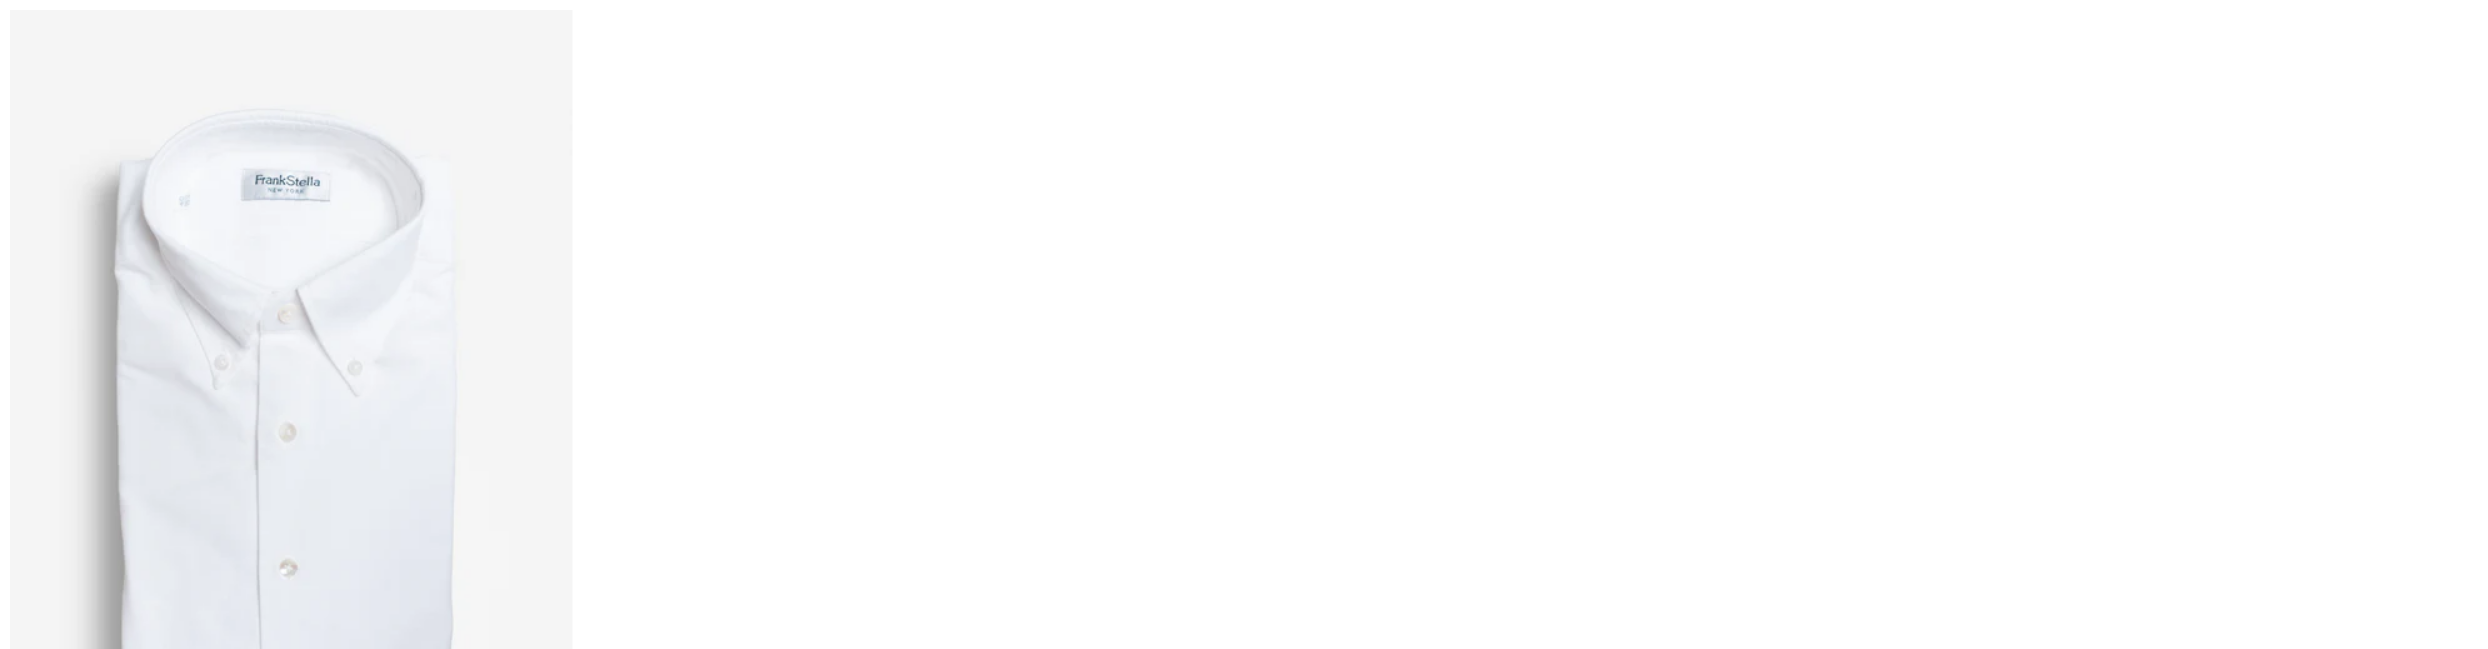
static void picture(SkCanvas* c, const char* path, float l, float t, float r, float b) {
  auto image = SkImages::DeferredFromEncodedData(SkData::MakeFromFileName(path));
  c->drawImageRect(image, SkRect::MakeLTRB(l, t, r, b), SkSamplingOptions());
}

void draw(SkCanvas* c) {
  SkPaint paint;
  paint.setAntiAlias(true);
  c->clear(0xffffffff);
  picture(c, "img_01.png", 10, 10, 573, 649);
}
